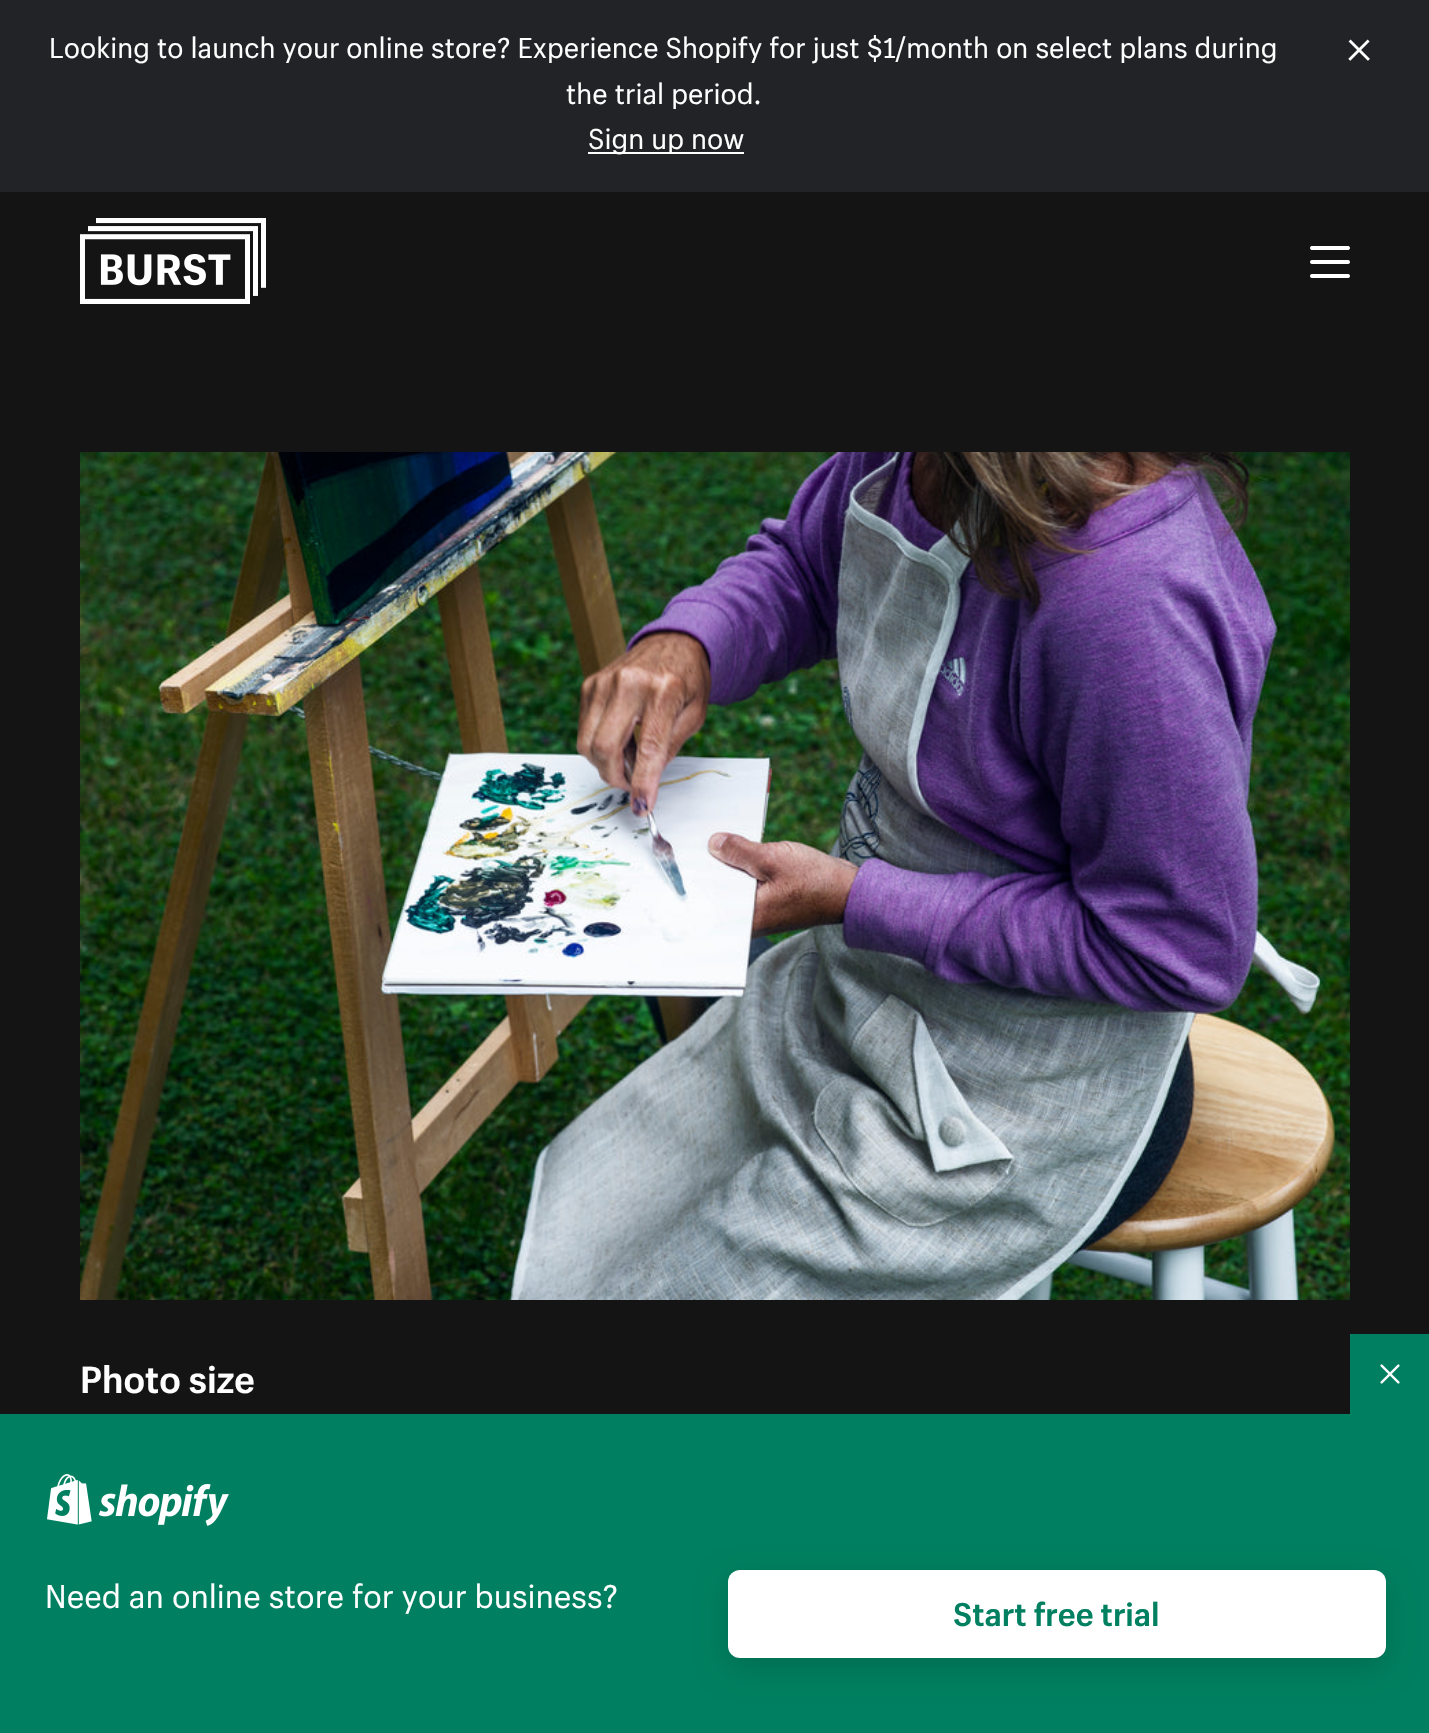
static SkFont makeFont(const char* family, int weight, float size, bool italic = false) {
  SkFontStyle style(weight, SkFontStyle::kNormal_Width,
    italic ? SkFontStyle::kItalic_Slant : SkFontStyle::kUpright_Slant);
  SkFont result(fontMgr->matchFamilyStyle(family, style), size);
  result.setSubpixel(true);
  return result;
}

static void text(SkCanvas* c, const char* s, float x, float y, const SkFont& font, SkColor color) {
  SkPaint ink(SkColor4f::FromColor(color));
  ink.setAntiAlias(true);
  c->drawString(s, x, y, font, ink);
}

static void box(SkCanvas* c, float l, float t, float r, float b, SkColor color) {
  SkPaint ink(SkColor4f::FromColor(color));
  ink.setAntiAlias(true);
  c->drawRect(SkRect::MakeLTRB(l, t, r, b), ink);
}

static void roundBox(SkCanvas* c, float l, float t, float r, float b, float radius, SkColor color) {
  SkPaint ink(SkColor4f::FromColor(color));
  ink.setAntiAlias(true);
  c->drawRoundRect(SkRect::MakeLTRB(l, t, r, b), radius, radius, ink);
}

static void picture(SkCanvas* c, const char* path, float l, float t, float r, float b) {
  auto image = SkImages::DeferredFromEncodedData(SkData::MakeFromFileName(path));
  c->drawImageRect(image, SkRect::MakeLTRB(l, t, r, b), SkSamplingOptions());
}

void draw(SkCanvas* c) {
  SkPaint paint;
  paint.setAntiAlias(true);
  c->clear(0xff141414);
  box(c, 0, 0, 1429, 192, 0xff212326);
  SkFont face1 = makeFont("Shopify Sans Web", 400, 28);
  text(c, "Looking to launch your online store? Experience Shopify for just $1/month on select plans during", 49, 58, face1, 0xffffffff);
  text(c, "the trial period.", 566, 104, face1, 0xffffffff);
  box(c, 588, 152, 744, 154, 0xffffffff);
  text(c, "Sign up now", 588, 149, face1, 0xffffffff);
  picture(c, "img_01.png", 1348, 39, 1370, 61);
  picture(c, "img_02.png", 80, 218, 266, 304);
  picture(c, "img_03.png", 1310, 246, 1350, 278);
  picture(c, "img_04.png", 80, 452, 1350, 1300);
  SkFont face2 = makeFont("Shopify Sans Web", 700, 36.75f);
  text(c, "Photo size", 80, 1393, face2, 0xffffffff);
  box(c, 1350, 1334, 1429, 1414, 0xff008060);
  picture(c, "img_05.png", 1380, 1364, 1400, 1384);
  box(c, 0, 1414, 1429, 1733, 0xff008060);
  picture(c, "img_06.png", 47, 1474, 229, 1526);
  SkFont face3 = makeFont("Shopify Sans Web", 400, 32);
  text(c, "Need an online store for your business?", 45, 1608, face3, 0xffffffff);
  paint.setColor(0x26000000);
  paint.setMaskFilter(SkMaskFilter::MakeBlur(kNormal_SkBlurStyle, 15));
  c->drawRoundRect(SkRect::MakeLTRB(728, 1580, 1386, 1668), 12, 12, paint);
  paint.setMaskFilter(nullptr);
  roundBox(c, 728, 1570, 1386, 1658, 12, 0xffffffff);
  SkFont face4 = makeFont("Shopify Sans Web", 700, 32);
  text(c, "Start free trial", 953, 1626, face4, 0xff008060);
}
